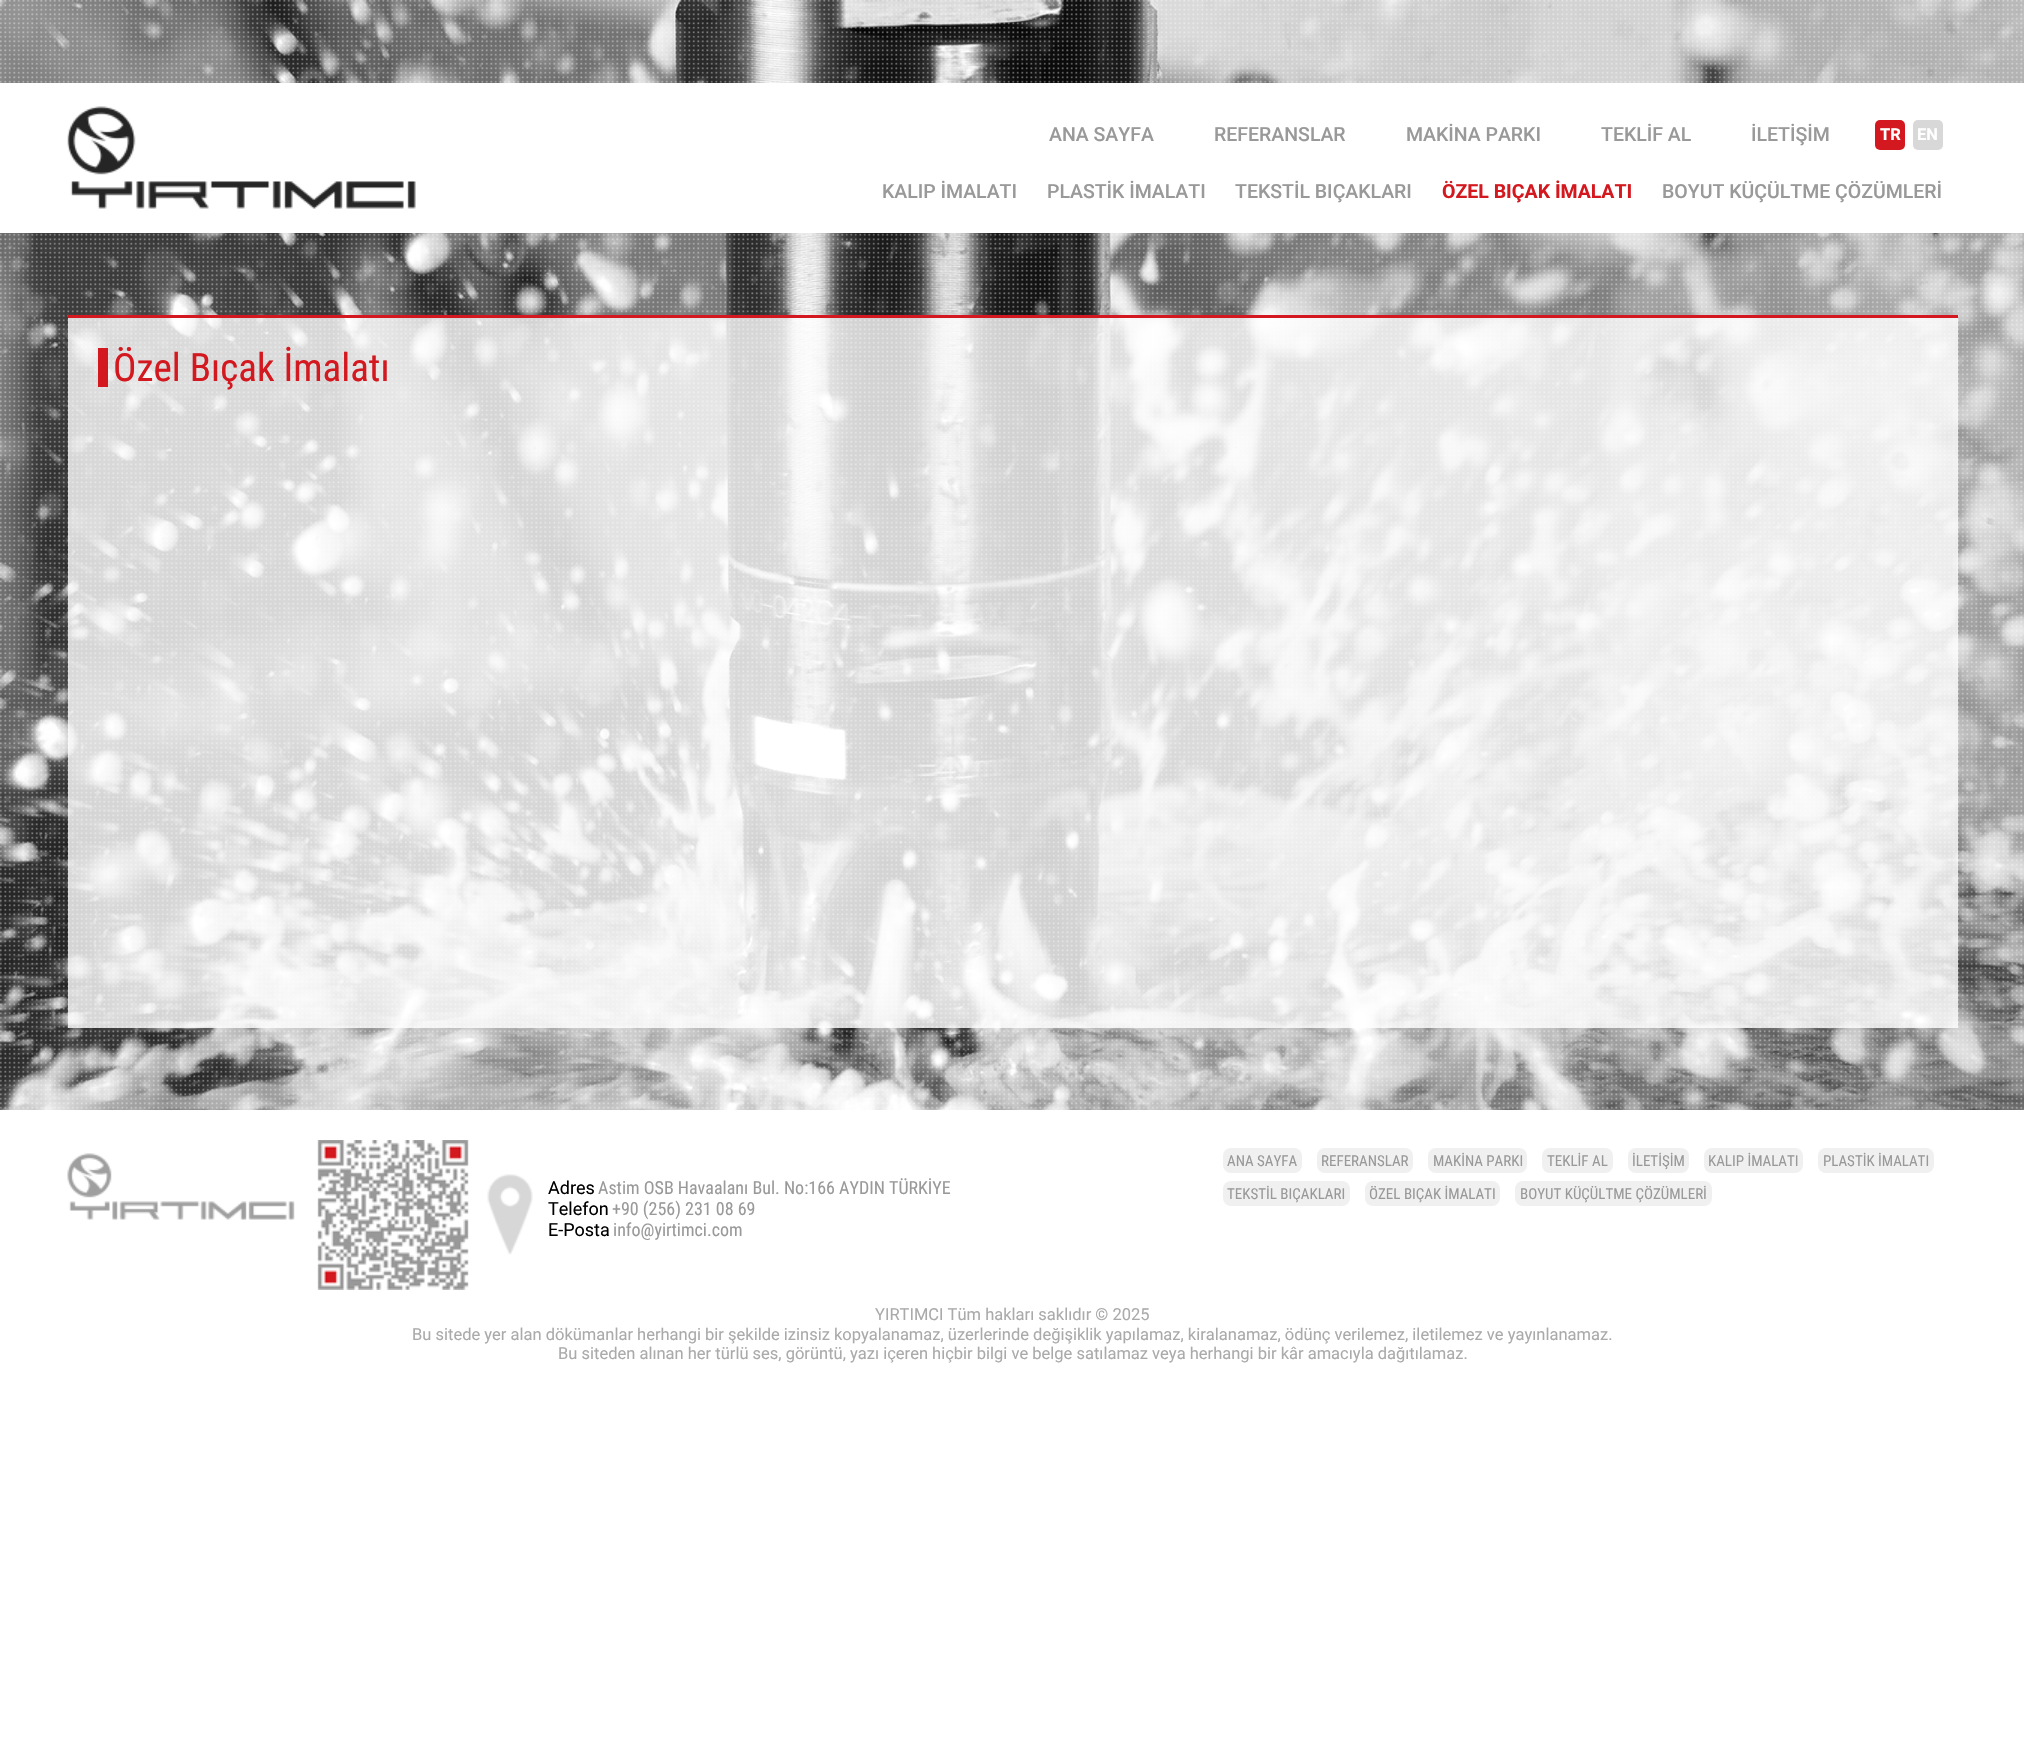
static SkFont makeFont(const char* family, int weight, float size, bool italic = false) {
  SkFontStyle style(weight, SkFontStyle::kNormal_Width,
    italic ? SkFontStyle::kItalic_Slant : SkFontStyle::kUpright_Slant);
  SkFont result(fontMgr->matchFamilyStyle(family, style), size);
  result.setSubpixel(true);
  return result;
}

static void text(SkCanvas* c, const char* s, float x, float y, const SkFont& font, SkColor color) {
  SkPaint ink(SkColor4f::FromColor(color));
  ink.setAntiAlias(true);
  c->drawString(s, x, y, font, ink);
}

static void box(SkCanvas* c, float l, float t, float r, float b, SkColor color) {
  SkPaint ink(SkColor4f::FromColor(color));
  ink.setAntiAlias(true);
  c->drawRect(SkRect::MakeLTRB(l, t, r, b), ink);
}

static void roundBox(SkCanvas* c, float l, float t, float r, float b, float radius, SkColor color) {
  SkPaint ink(SkColor4f::FromColor(color));
  ink.setAntiAlias(true);
  c->drawRoundRect(SkRect::MakeLTRB(l, t, r, b), radius, radius, ink);
}

static void picture(SkCanvas* c, const char* path, float l, float t, float r, float b) {
  auto image = SkImages::DeferredFromEncodedData(SkData::MakeFromFileName(path));
  c->drawImageRect(image, SkRect::MakeLTRB(l, t, r, b), SkSamplingOptions());
}

void draw(SkCanvas* c) {
  SkPaint paint;
  paint.setAntiAlias(true);
  c->clear(0xffffffff);
  picture(c, "img_01.png", 0, 0, 2024, 1110);
  picture(c, "img_02.png", 0, 0, 2023, 1109);
  box(c, 0, 83, 2024, 233, 0xffffffff);
  picture(c, "img_03.png", 67, 106, 416, 209);
  SkFont face1 = makeFont("Roboto", 500, 19.5f);
  text(c, "ANA SAYFA", 1049, 141, face1, 0xff999999);
  text(c, "REFERANSLAR", 1214, 141, face1, 0xff999999);
  text(c, "MAKİNA PARKI", 1406, 141, face1, 0xff999999);
  text(c, "TEKLİF AL", 1601, 141, face1, 0xff999999);
  text(c, "İLETİŞİM", 1751, 141, face1, 0xff999999);
  roundBox(c, 1875, 120, 1905, 150, 5, 0xffd3191f);
  SkFont face2 = makeFont("Roboto", 700, 16.5f);
  text(c, "TR", 1880, 140, face2, 0xffffffff);
  roundBox(c, 1913, 120, 1943, 150, 5, 0xffd8d8d8);
  text(c, "EN", 1917, 140, face2, 0xffffffff);
  text(c, "KALIP İMALATI", 882, 198, face1, 0xff999999);
  text(c, "PLASTİK İMALATI", 1047, 198, face1, 0xff999999);
  text(c, "TEKSTİL BIÇAKLARI", 1235, 198, face1, 0xff999999);
  SkFont face3 = makeFont("Roboto", 700, 19.5f);
  text(c, "ÖZEL BIÇAK İMALATI", 1442, 198, face3, 0xffd3191f);
  text(c, "BOYUT KÜÇÜLTME ÇÖZÜMLERİ", 1662, 198, face1, 0xff999999);
  box(c, 68, 318, 1958, 1028, 0xccffffff);
  box(c, 68, 315, 1958, 318, 0xffd3191f);
  box(c, 98, 348, 108, 387, 0xffd3191f);
  SkFont face4 = makeFont("Roboto Condensed", 400, 39);
  text(c, "Özel Bıçak İmalatı", 113, 381, face4, 0xffd3191f);
  picture(c, "img_04.png", 67, 1140, 533, 1290);
  SkFont face5 = makeFont("Roboto", 400, 18);
  text(c, "Adres", 548, 1194, face5, 0xff000000);
  SkFont face6 = makeFont("Roboto Condensed", 400, 18);
  text(c, "Astim OSB Havaalanı Bul. No:166 AYDIN TÜRKİYE", 598, 1194, face6, 0xff999999);
  text(c, "Telefon", 548, 1215, face5, 0xff000000);
  text(c, "+90 (256) 231 08 69", 612, 1215, face6, 0xff999999);
  text(c, "E-Posta", 548, 1236, face5, 0xff000000);
  text(c, "info@yirtimci.com", 613, 1236, face6, 0xff999999);
  roundBox(c, 1223, 1148, 1302, 1173, 8, 0xfff0f0f0);
  SkFont face7 = makeFont("Roboto Condensed", 400, 15);
  text(c, "ANA SAYFA", 1227, 1166, face7, 0xff999999);
  roundBox(c, 1317, 1148, 1413, 1173, 8, 0xfff0f0f0);
  text(c, "REFERANSLAR", 1321, 1166, face7, 0xff999999);
  roundBox(c, 1428, 1148, 1527, 1173, 8, 0xfff0f0f0);
  text(c, "MAKİNA PARKI", 1433, 1166, face7, 0xff999999);
  roundBox(c, 1542, 1148, 1613, 1173, 8, 0xfff0f0f0);
  text(c, "TEKLİF AL", 1547, 1166, face7, 0xff999999);
  roundBox(c, 1628, 1148, 1689, 1173, 8, 0xfff0f0f0);
  text(c, "İLETİŞİM", 1632, 1166, face7, 0xff999999);
  roundBox(c, 1704, 1148, 1803, 1173, 8, 0xfff0f0f0);
  text(c, "KALIP İMALATI", 1708, 1166, face7, 0xff999999);
  roundBox(c, 1818, 1148, 1934, 1173, 8, 0xfff0f0f0);
  text(c, "PLASTİK İMALATI", 1823, 1166, face7, 0xff999999);
  roundBox(c, 1223, 1181, 1350, 1206, 8, 0xfff0f0f0);
  text(c, "TEKSTİL BIÇAKLARI", 1227, 1199, face7, 0xff999999);
  roundBox(c, 1365, 1181, 1500, 1206, 8, 0xfff0f0f0);
  text(c, "ÖZEL BIÇAK İMALATI", 1369, 1199, face7, 0xff999999);
  roundBox(c, 1515, 1181, 1712, 1206, 8, 0xfff0f0f0);
  text(c, "BOYUT KÜÇÜLTME ÇÖZÜMLERİ", 1520, 1199, face7, 0xff999999);
  SkFont face8 = makeFont("Roboto", 400, 16.5f);
  text(c, "YIRTIMCI Tüm hakları saklıdır © 2025", 875, 1320, face8, 0xffaaaaaa);
  text(c, "Bu sitede yer alan dökümanlar herhangi bir şekilde izinsiz kopyalanamaz, üzerlerinde değişiklik yapılamaz, kiralanamaz, ödünç verilemez, iletilemez ve yayınlanamaz.", 412, 1340, face8, 0xffaaaaaa);
  text(c, "Bu siteden alınan her türlü ses, görüntü, yazı içeren hiçbir bilgi ve belge satılamaz veya herhangi bir kâr amacıyla dağıtılamaz.", 558, 1359, face8, 0xffaaaaaa);
}
